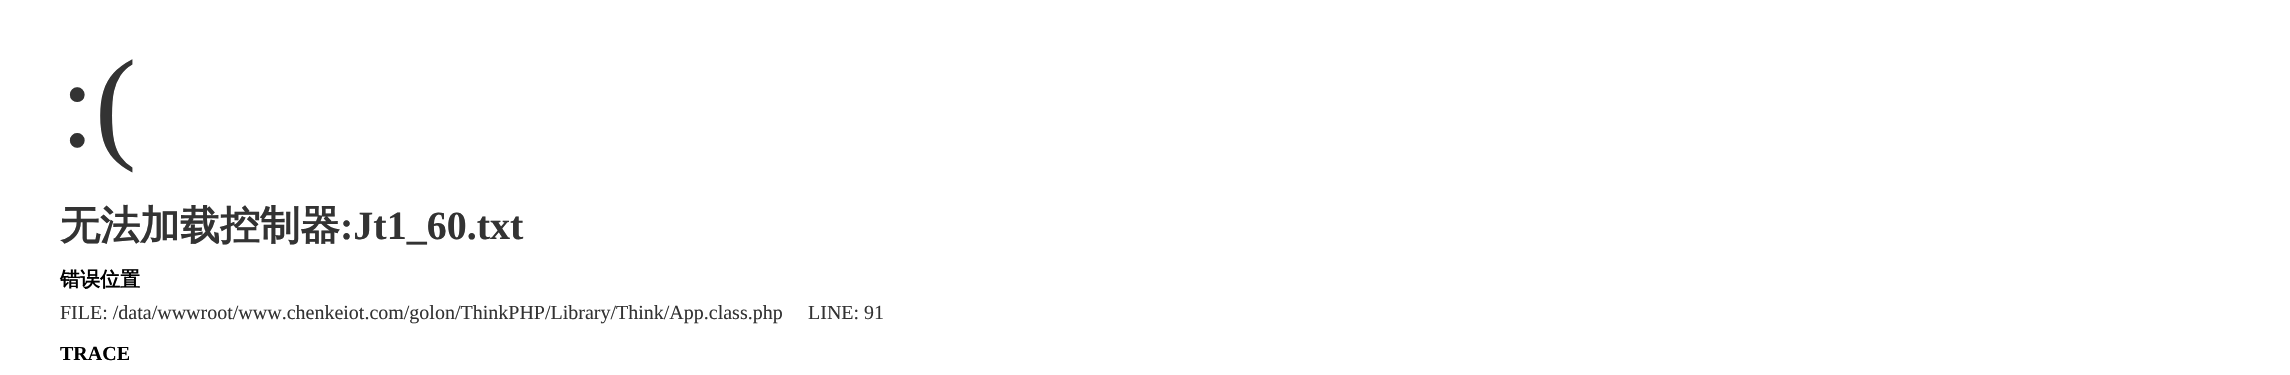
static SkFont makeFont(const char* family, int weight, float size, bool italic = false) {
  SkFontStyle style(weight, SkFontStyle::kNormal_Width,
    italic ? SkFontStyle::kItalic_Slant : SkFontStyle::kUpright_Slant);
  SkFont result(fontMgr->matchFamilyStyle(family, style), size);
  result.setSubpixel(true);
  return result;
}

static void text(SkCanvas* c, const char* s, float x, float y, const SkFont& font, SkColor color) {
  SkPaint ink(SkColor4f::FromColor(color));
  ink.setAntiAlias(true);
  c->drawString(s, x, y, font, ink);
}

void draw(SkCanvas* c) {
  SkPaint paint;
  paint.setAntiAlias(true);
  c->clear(0xffffffff);
  SkFont face1 = makeFont("Liberation Serif", 400, 125);
  text(c, ":(", 60, 146, face1, 0xff333333);
  SkFont face2 = makeFont("WenQuanYi Zen Hei", 700, 40);
  text(c, "无法加载控制器", 60, 239, face2, 0xff333333);
  SkFont face3 = makeFont("Liberation Serif", 700, 40);
  text(c, ":Jt1_60.txt", 340, 239, face3, 0xff333333);
  SkFont face4 = makeFont("WenQuanYi Zen Hei", 700, 20);
  text(c, "错误位置", 60, 286, face4, 0xff000000);
  SkFont face5 = makeFont("Liberation Serif", 400, 20);
  text(c, "FILE: /data/wwwroot/www.chenkeiot.com/golon/ThinkPHP/Library/Think/App.class.php", 60, 319, face5, 0xff333333);
  text(c, "LINE: 91", 808, 319, face5, 0xff333333);
  SkFont face6 = makeFont("Liberation Serif", 700, 20);
  text(c, "TRACE", 60, 360, face6, 0xff000000);
}
